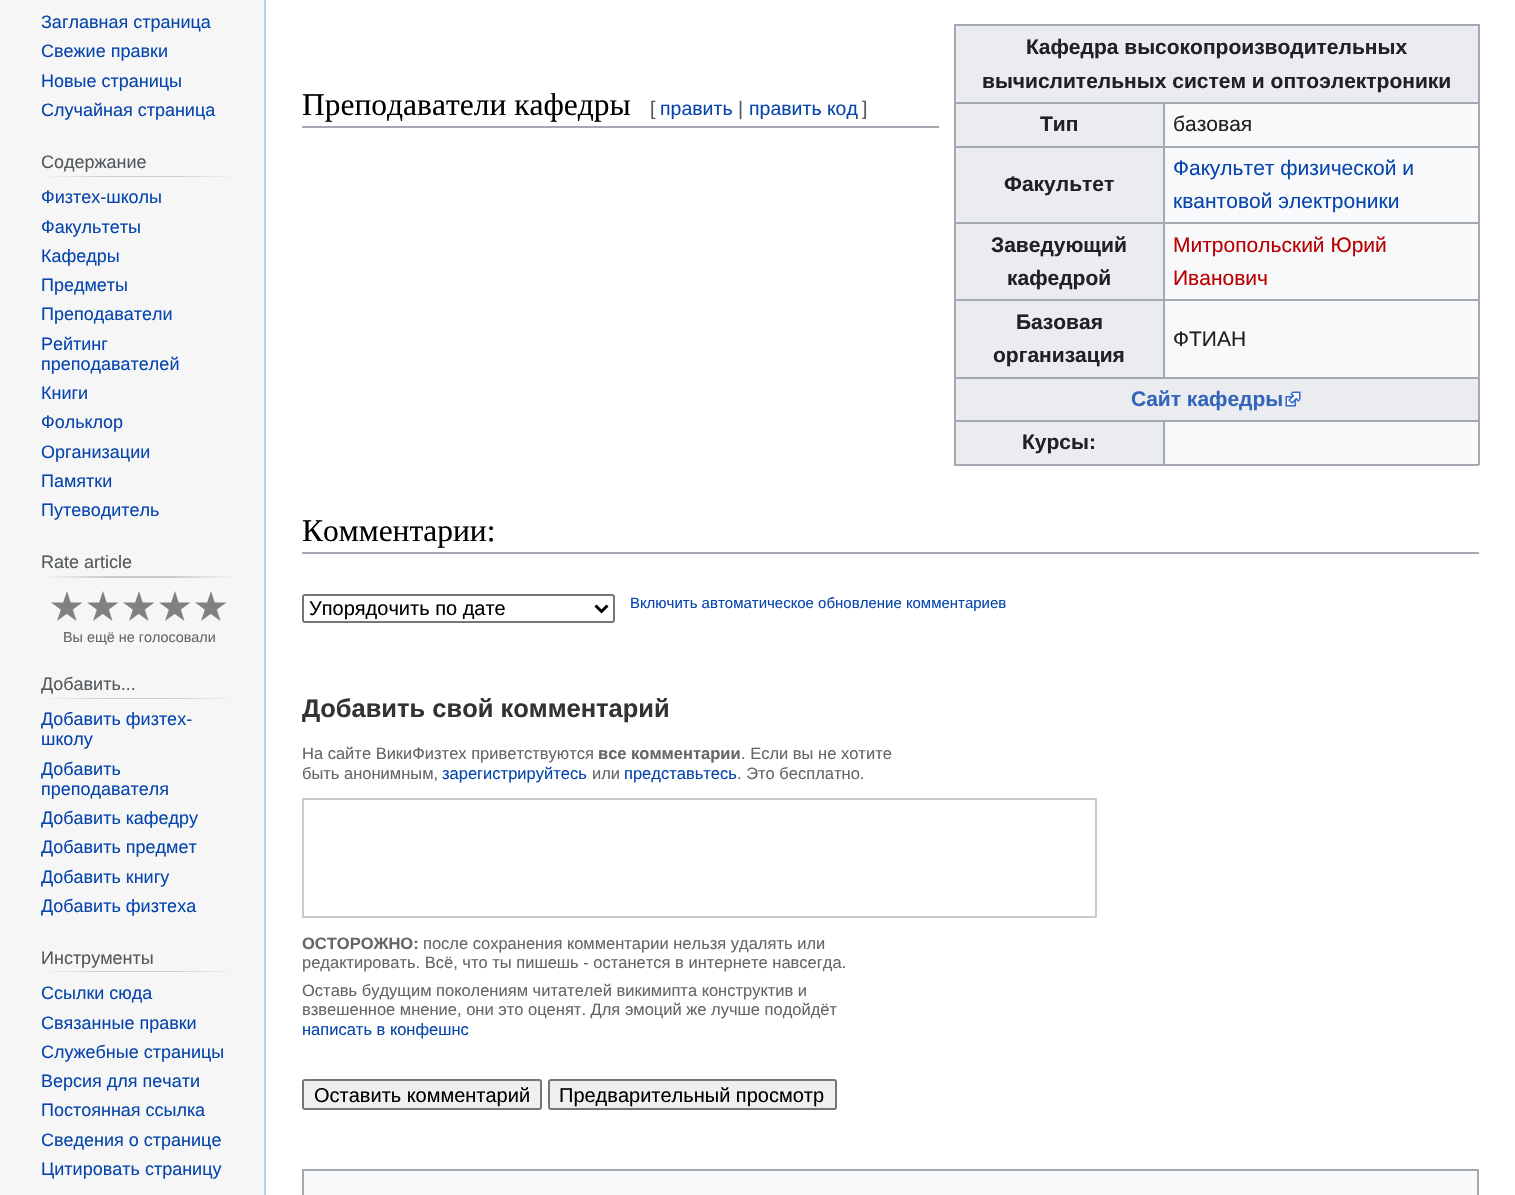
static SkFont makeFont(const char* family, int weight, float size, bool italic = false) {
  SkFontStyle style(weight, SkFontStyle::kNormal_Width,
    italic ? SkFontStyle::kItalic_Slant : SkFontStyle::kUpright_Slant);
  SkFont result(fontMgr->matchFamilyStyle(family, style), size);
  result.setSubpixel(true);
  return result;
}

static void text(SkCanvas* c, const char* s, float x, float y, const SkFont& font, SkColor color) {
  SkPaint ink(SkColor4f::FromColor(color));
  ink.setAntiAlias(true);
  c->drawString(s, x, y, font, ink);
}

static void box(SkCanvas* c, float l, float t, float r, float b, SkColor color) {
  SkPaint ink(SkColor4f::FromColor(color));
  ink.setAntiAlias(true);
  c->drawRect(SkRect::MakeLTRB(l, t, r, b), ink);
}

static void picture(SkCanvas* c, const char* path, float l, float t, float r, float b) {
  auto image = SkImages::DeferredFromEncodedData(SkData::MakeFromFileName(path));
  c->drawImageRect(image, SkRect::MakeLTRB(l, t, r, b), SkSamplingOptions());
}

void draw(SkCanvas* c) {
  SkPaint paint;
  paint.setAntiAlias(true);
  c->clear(0xfff6f6f6);
  SkFont face1 = makeFont("Liberation Sans", 400, 18);
  text(c, "Заглавная страница", 41, 28, face1, 0xff0645ad);
  text(c, "Свежие правки", 41, 57, face1, 0xff0645ad);
  text(c, "Новые страницы", 41, 87, face1, 0xff0645ad);
  text(c, "Случайная страница", 41, 116, face1, 0xff0645ad);
  {
    const SkColor colors[] = {0xfff6f6f6, 0xffc8ccd1, 0xffc8ccd1, 0xfff6f6f6};
    const float stops[] = {0, 0.33f, 0.66f, 1};
    const SkPoint ends[] = {{41, 176}, {237, 176}};
    paint.setShader(SkGradientShader::MakeLinear(ends, colors, stops, 4, SkTileMode::kClamp));
    paint.setAlpha(255);
  }
  c->drawRect(SkRect::MakeLTRB(41, 176, 237, 177), paint);
  text(c, "Содержание", 41, 168, face1, 0xff54595d);
  text(c, "Физтех-школы", 41, 203, face1, 0xff0645ad);
  text(c, "Факультеты", 41, 233, face1, 0xff0645ad);
  text(c, "Кафедры", 41, 262, face1, 0xff0645ad);
  text(c, "Предметы", 41, 291, face1, 0xff0645ad);
  text(c, "Преподаватели", 41, 320, face1, 0xff0645ad);
  text(c, "Рейтинг", 41, 350, face1, 0xff0645ad);
  text(c, "преподавателей", 41, 370, face1, 0xff0645ad);
  text(c, "Книги", 41, 399, face1, 0xff0645ad);
  text(c, "Фольклор", 41, 428, face1, 0xff0645ad);
  text(c, "Организации", 41, 458, face1, 0xff0645ad);
  text(c, "Памятки", 41, 487, face1, 0xff0645ad);
  text(c, "Путеводитель", 41, 516, face1, 0xff0645ad);
  {
    const SkColor colors[] = {0xfff6f6f6, 0xffc8ccd1, 0xffc8ccd1, 0xfff6f6f6};
    const float stops[] = {0, 0.33f, 0.66f, 1};
    const SkPoint ends[] = {{41, 577}, {237, 577}};
    paint.setShader(SkGradientShader::MakeLinear(ends, colors, stops, 4, SkTileMode::kClamp));
    paint.setAlpha(255);
  }
  c->drawRect(SkRect::MakeLTRB(41, 576, 237, 578), paint);
  text(c, "Rate article", 41, 568, face1, 0xff54595d);
  paint.setShader(nullptr);
  paint.setColor(0xff808080);
  c->drawPath(SkPathBuilder().moveTo(57, 621).lineTo(67, 591).lineTo(76.5f, 621).lineTo(51, 602.5f).lineTo(82.5f, 602.5f).close().detach(), paint);
  c->drawPath(SkPathBuilder().moveTo(93, 621).lineTo(103, 591).lineTo(112.5f, 621).lineTo(87, 602.5f).lineTo(118.5f, 602.5f).close().detach(), paint);
  c->drawPath(SkPathBuilder().moveTo(129, 621).lineTo(139, 591).lineTo(148.5f, 621).lineTo(123, 602.5f).lineTo(154.5f, 602.5f).close().detach(), paint);
  c->drawPath(SkPathBuilder().moveTo(165, 621).lineTo(175, 591).lineTo(184.5f, 621).lineTo(159, 602.5f).lineTo(190.5f, 602.5f).close().detach(), paint);
  c->drawPath(SkPathBuilder().moveTo(201, 621).lineTo(211, 591).lineTo(220.5f, 621).lineTo(195, 602.5f).lineTo(226.5f, 602.5f).close().detach(), paint);
  SkFont face2 = makeFont("Liberation Sans", 400, 14.4f);
  text(c, "Вы ещё не голосовали", 63, 642, face2, 0xff666666);
  {
    const SkColor colors[] = {0xfff6f6f6, 0xffc8ccd1, 0xffc8ccd1, 0xfff6f6f6};
    const float stops[] = {0, 0.33f, 0.66f, 1};
    const SkPoint ends[] = {{41, 698}, {237, 698}};
    paint.setShader(SkGradientShader::MakeLinear(ends, colors, stops, 4, SkTileMode::kClamp));
    paint.setAlpha(255);
  }
  c->drawRect(SkRect::MakeLTRB(41, 698, 237, 699), paint);
  c->save();
  c->clipRect(SkRect::MakeLTRB(41, 669, 237, 699));
  text(c, "Добавить...", 41, 690, face1, 0xff54595d);
  c->restore();
  text(c, "Добавить физтех-", 41, 725, face1, 0xff0645ad);
  text(c, "школу", 41, 745, face1, 0xff0645ad);
  text(c, "Добавить", 41, 775, face1, 0xff0645ad);
  text(c, "преподавателя", 41, 795, face1, 0xff0645ad);
  text(c, "Добавить кафедру", 41, 824, face1, 0xff0645ad);
  text(c, "Добавить предмет", 41, 853, face1, 0xff0645ad);
  text(c, "Добавить книгу", 41, 883, face1, 0xff0645ad);
  text(c, "Добавить физтеха", 41, 912, face1, 0xff0645ad);
  {
    const SkColor colors[] = {0xfff6f6f6, 0xffc8ccd1, 0xffc8ccd1, 0xfff6f6f6};
    const float stops[] = {0, 0.33f, 0.66f, 1};
    const SkPoint ends[] = {{41, 971}, {237, 971}};
    paint.setShader(SkGradientShader::MakeLinear(ends, colors, stops, 4, SkTileMode::kClamp));
    paint.setAlpha(255);
  }
  c->drawRect(SkRect::MakeLTRB(41, 971, 237, 972), paint);
  text(c, "Инструменты", 41, 964, face1, 0xff54595d);
  text(c, "Ссылки сюда", 41, 999, face1, 0xff0645ad);
  text(c, "Связанные правки", 41, 1029, face1, 0xff0645ad);
  text(c, "Служебные страницы", 41, 1058, face1, 0xff0645ad);
  text(c, "Версия для печати", 41, 1087, face1, 0xff0645ad);
  text(c, "Постоянная ссылка", 41, 1116, face1, 0xff0645ad);
  text(c, "Сведения о странице", 41, 1146, face1, 0xff0645ad);
  text(c, "Цитировать страницу", 41, 1175, face1, 0xff0645ad);
  box(c, 266, 0, 1515, 1195, 0xffffffff);
  box(c, 264, 0, 266, 1195, 0xffa7d7f9);
  box(c, 302, 126, 939, 128, 0xffa2a9b1);
  SkFont face3 = makeFont("Liberation Serif", 400, 31.5f);
  text(c, "Преподаватели кафедры", 302, 115, face3, 0xff000000);
  SkFont face4 = makeFont("Liberation Sans", 400, 19.5f);
  text(c, "[", 650, 115, face4, 0xff54595d);
  text(c, "править", 660, 115, face4, 0xff0645ad);
  text(c, "|", 738, 115, face4, 0xff54595d);
  text(c, "править код", 749, 115, face4, 0xff0645ad);
  text(c, "]", 862, 115, face4, 0xff54595d);
  box(c, 1165, 104, 1478, 464, 0xfff8f9fa);
  box(c, 954, 24, 1479, 26, 0xffa2a9b1);
  box(c, 1478, 24, 1480, 465, 0xffa2a9b1);
  box(c, 954, 464, 1479, 466, 0xffa2a9b1);
  box(c, 954, 24, 956, 465, 0xffa2a9b1);
  box(c, 956, 26, 1478, 102, 0xffeaecf0);
  SkFont face5 = makeFont("Liberation Sans", 700, 21);
  text(c, "Кафедра высокопроизводительных", 1026, 54, face5, 0xff202122);
  text(c, "вычислительных систем и оптоэлектроники", 982, 88, face5, 0xff202122);
  box(c, 956, 104, 1163, 146, 0xffeaecf0);
  box(c, 1163, 102, 1479, 104, 0xffa2a9b1);
  box(c, 1163, 146, 1479, 148, 0xffa2a9b1);
  box(c, 1163, 222, 1479, 224, 0xffa2a9b1);
  box(c, 1163, 299, 1479, 301, 0xffa2a9b1);
  box(c, 954, 377, 1479, 379, 0xffa2a9b1);
  box(c, 1163, 299, 1165, 378, 0xffa2a9b1);
  box(c, 954, 299, 1164, 301, 0xffa2a9b1);
  box(c, 1163, 222, 1165, 300, 0xffa2a9b1);
  box(c, 954, 222, 1164, 224, 0xffa2a9b1);
  box(c, 1163, 146, 1165, 224, 0xffa2a9b1);
  box(c, 954, 146, 1164, 148, 0xffa2a9b1);
  box(c, 1163, 102, 1165, 147, 0xffa2a9b1);
  box(c, 954, 102, 1164, 104, 0xffa2a9b1);
  text(c, "Тип", 1040, 131, face5, 0xff202122);
  SkFont face6 = makeFont("Liberation Sans", 400, 21);
  text(c, "базовая", 1173, 131, face6, 0xff202122);
  box(c, 956, 148, 1163, 222, 0xffeaecf0);
  text(c, "Факультет", 1004, 191, face5, 0xff202122);
  text(c, "Факультет физической и", 1173, 175, face6, 0xff0645ad);
  text(c, "квантовой электроники", 1173, 208, face6, 0xff0645ad);
  box(c, 956, 224, 1163, 299, 0xffeaecf0);
  text(c, "Заведующий", 991, 252, face5, 0xff202122);
  text(c, "кафедрой", 1007, 285, face5, 0xff202122);
  text(c, "Митропольский Юрий", 1173, 252, face6, 0xffba0000);
  text(c, "Иванович", 1173, 285, face6, 0xffba0000);
  box(c, 956, 301, 1163, 377, 0xffeaecf0);
  text(c, "Базовая", 1016, 329, face5, 0xff202122);
  text(c, "организация", 993, 362, face5, 0xff202122);
  text(c, "ФТИАН", 1173, 346, face6, 0xff202122);
  box(c, 956, 379, 1478, 420, 0xffeaecf0);
  text(c, "Сайт кафедры", 1131, 406, face5, 0xff3366bb);
  picture(c, "img_01.png", 1285, 391, 1301, 407);
  box(c, 956, 422, 1163, 464, 0xffeaecf0);
  box(c, 1163, 420, 1479, 422, 0xffa2a9b1);
  box(c, 1163, 420, 1165, 465, 0xffa2a9b1);
  box(c, 954, 420, 1164, 422, 0xffa2a9b1);
  text(c, "Курсы:", 1022, 449, face5, 0xff202122);
  box(c, 302, 552, 1479, 554, 0xffa2a9b1);
  text(c, "Комментарии:", 302, 541, face3, 0xff000000);
  paint.setStyle(SkPaint::kStroke_Style);
  paint.setStrokeWidth(2);
  paint.setShader(nullptr);
  paint.setColor(0xff767676);
  c->drawRoundRect(SkRect::MakeLTRB(303, 595, 614, 622), 2, 2, paint);
  paint.setStrokeWidth(3);
  paint.setColor(0xff000000);
  c->drawPath(SkPathBuilder().moveTo(595.5f, 605.5f).lineTo(601.5f, 611.5f).lineTo(607.5f, 605.5f).detach(), paint);
  SkFont face7 = makeFont("Liberation Sans", 400, 20);
  text(c, "Упорядочить по дате", 309, 615, face7, 0xff000000);
  SkFont face8 = makeFont("Liberation Sans", 400, 15);
  text(c, "Включить автоматическое обновление комментариев", 630, 608, face8, 0xff0645ad);
  c->save();
  c->clipRect(SkRect::MakeLTRB(302, 480, 1479, 1148));
  SkFont face9 = makeFont("Liberation Sans", 700, 25.5f);
  text(c, "Добавить свой комментарий", 302, 717, face9, 0xff333333);
  c->restore();
  SkFont face10 = makeFont("Liberation Sans", 400, 16.5f);
  text(c, "На сайте ВикиФизтех приветствуются", 302, 759, face10, 0xff666666);
  SkFont face11 = makeFont("Liberation Sans", 700, 16.5f);
  text(c, "все комментарии", 598, 759, face11, 0xff666666);
  text(c, ". Если вы не хотите", 741, 759, face10, 0xff666666);
  text(c, "быть анонимным,", 302, 779, face10, 0xff666666);
  text(c, "зарегистрируйтесь", 442, 779, face10, 0xff0645ad);
  text(c, "или", 592, 779, face10, 0xff666666);
  text(c, "представьтесь", 624, 779, face10, 0xff0645ad);
  text(c, ". Это бесплатно.", 737, 779, face10, 0xff666666);
  paint.setStrokeWidth(2);
  paint.setColor(0xffc8ccd1);
  c->drawRect(SkRect::MakeLTRB(303, 799, 1096, 917), paint);
  text(c, "ОСТОРОЖНО:", 302, 949, face11, 0xff666666);
  text(c, "после сохранения комментарии нельзя удалять или", 423, 949, face10, 0xff666666);
  text(c, "редактировать. Всё, что ты пишешь - останется в интернете навсегда.", 302, 968, face10, 0xff666666);
  text(c, "Оставь будущим поколениям читателей викимипта конструктив и", 302, 996, face10, 0xff666666);
  text(c, "взвешенное мнение, они это оценят. Для эмоций же лучше подойдёт", 302, 1015, face10, 0xff666666);
  text(c, "написать в конфешнс", 302, 1035, face10, 0xff0645ad);
  paint.setStyle(SkPaint::kFill_Style);
  paint.setColor(0xffefefef);
  c->drawRoundRect(SkRect::MakeLTRB(303, 1080, 541, 1109), 2, 2, paint);
  paint.setStyle(SkPaint::kStroke_Style);
  paint.setColor(0xff767676);
  c->drawRoundRect(SkRect::MakeLTRB(303, 1080, 541, 1109), 2, 2, paint);
  text(c, "Оставить комментарий", 314, 1102, face7, 0xff000000);
  paint.setStyle(SkPaint::kFill_Style);
  paint.setColor(0xffefefef);
  c->drawRoundRect(SkRect::MakeLTRB(549, 1080, 836, 1109), 2, 2, paint);
  paint.setStyle(SkPaint::kStroke_Style);
  paint.setColor(0xff767676);
  c->drawRoundRect(SkRect::MakeLTRB(549, 1080, 836, 1109), 2, 2, paint);
  text(c, "Предварительный просмотр", 559, 1102, face7, 0xff000000);
  paint.setStyle(SkPaint::kFill_Style);
  paint.setColor(0xfff8f9fa);
  c->drawRect(SkRect::MakeLTRB(303, 1170, 1478, 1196), paint);
  paint.setStyle(SkPaint::kStroke_Style);
  paint.setColor(0xffa2a9b1);
  c->drawRect(SkRect::MakeLTRB(303, 1170, 1478, 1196), paint);
}
